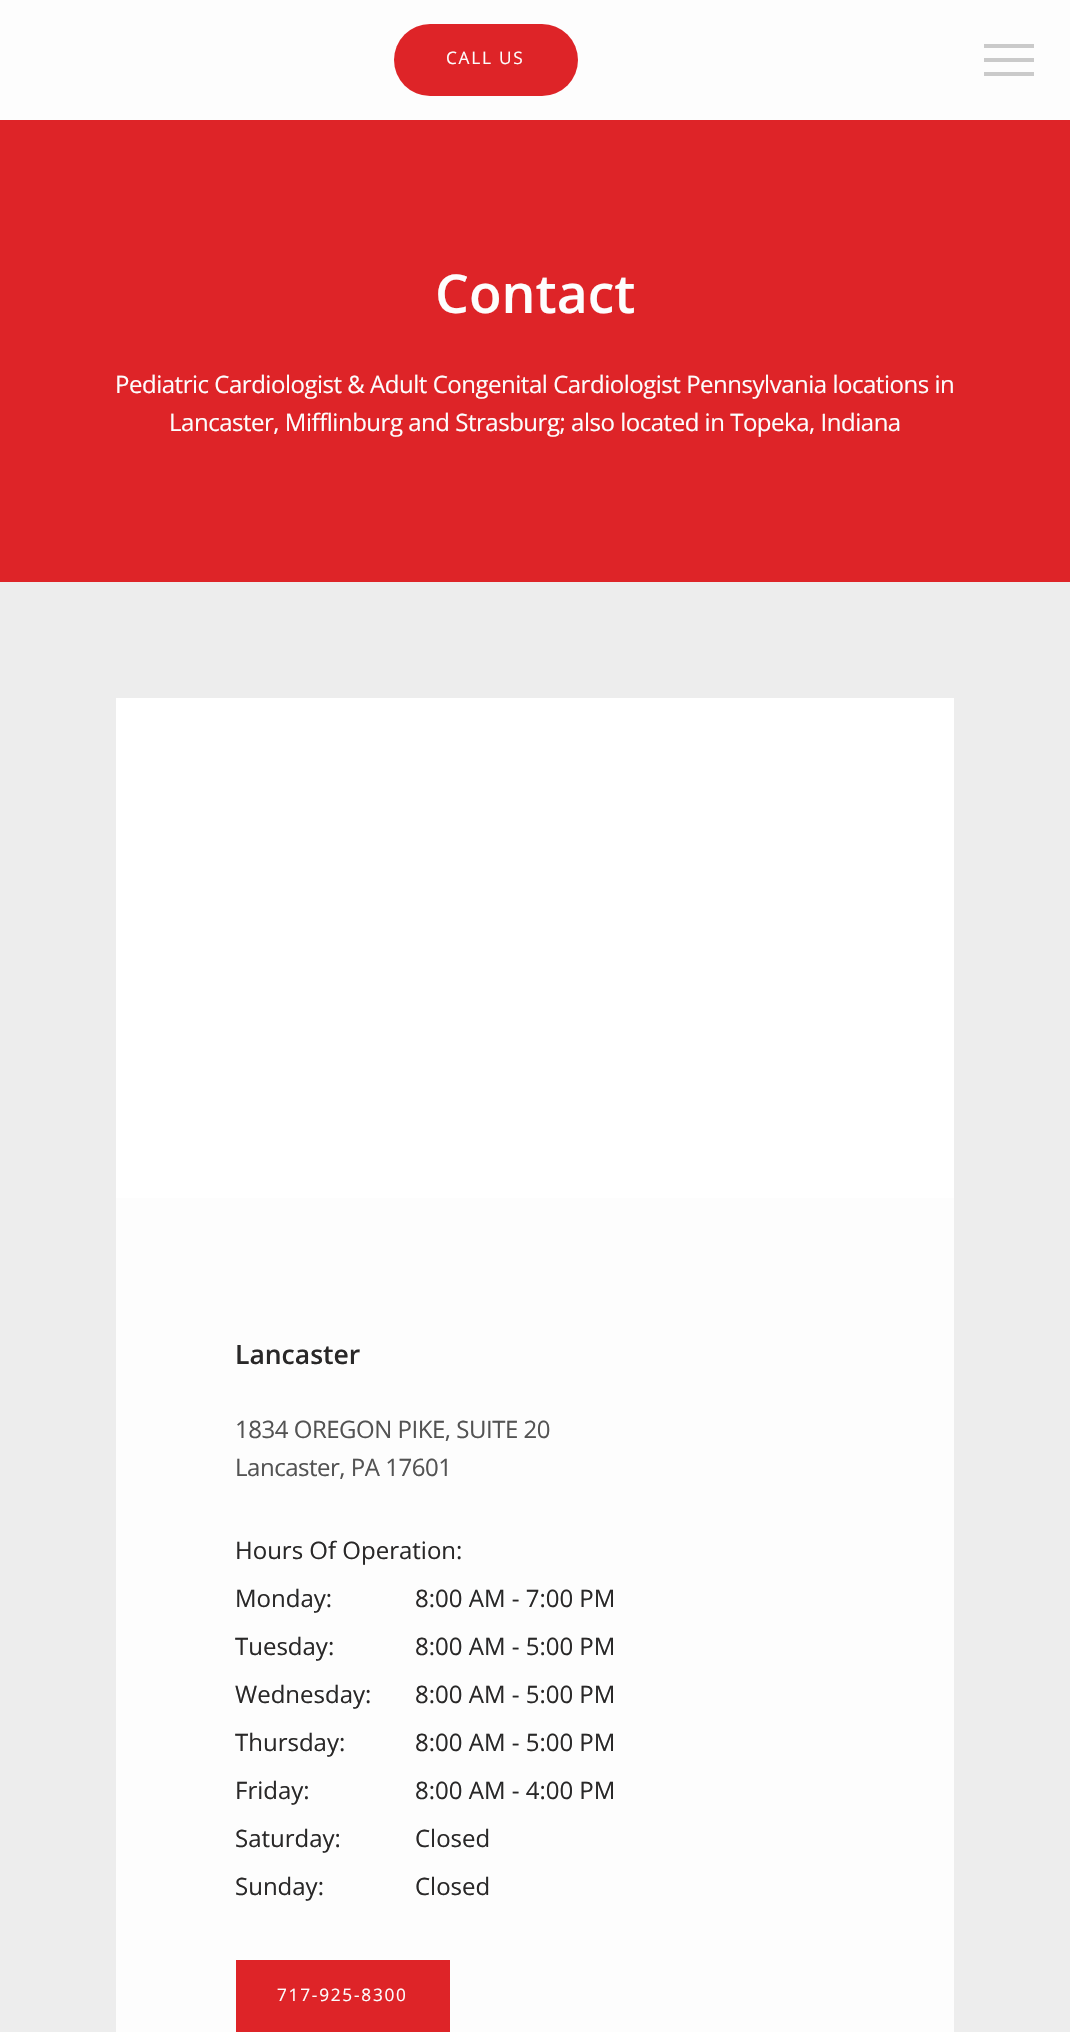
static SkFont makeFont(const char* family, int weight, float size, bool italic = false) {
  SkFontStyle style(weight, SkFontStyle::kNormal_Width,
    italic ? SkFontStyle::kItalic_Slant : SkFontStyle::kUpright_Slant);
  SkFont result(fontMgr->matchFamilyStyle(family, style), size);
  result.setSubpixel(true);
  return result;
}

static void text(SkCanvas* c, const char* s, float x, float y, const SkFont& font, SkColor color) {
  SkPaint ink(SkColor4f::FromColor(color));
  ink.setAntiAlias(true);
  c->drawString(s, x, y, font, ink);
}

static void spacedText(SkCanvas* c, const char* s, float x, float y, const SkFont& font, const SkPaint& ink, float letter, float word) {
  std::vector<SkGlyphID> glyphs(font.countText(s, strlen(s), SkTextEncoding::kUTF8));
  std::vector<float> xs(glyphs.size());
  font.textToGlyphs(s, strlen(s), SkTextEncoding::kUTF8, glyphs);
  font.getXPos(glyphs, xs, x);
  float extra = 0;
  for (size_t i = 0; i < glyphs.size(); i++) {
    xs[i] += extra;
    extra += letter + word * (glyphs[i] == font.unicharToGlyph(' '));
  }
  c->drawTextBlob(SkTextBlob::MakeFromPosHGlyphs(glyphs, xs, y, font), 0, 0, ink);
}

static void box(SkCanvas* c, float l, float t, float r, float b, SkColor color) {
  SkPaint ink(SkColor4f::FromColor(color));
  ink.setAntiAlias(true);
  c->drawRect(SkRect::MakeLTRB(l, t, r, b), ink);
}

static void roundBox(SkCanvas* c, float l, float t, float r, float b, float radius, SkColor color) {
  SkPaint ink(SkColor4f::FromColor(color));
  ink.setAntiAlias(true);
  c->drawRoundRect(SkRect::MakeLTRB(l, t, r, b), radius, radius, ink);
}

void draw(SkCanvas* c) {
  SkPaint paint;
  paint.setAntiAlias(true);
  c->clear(0xffde2428);
  box(c, 0, 0, 1070, 120, 0xfffdfdfd);
  roundBox(c, 394, 24, 578, 96, 36, 0xffde2428);
  SkFont face1 = makeFont("Open Sans", 400, 17.25f);
  paint.setColor(0xfffdfdfd);
  spacedText(c, "CALL US", 446, 64, face1, paint, 1.75f, 0);
  box(c, 984, 44, 1034, 48, 0xffcacaca);
  box(c, 984, 72, 1034, 76, 0xffcacaca);
  box(c, 984, 58, 1034, 62, 0xffcacaca);
  SkFont face2 = makeFont("Open Sans", 600, 53.5f);
  text(c, "Contact", 435, 313, face2, 0xfffdfdfd);
  SkFont face3 = makeFont("Open Sans", 400, 24);
  spacedText(c, "Pediatric Cardiologist & Adult Congenital Cardiologist Pennsylvania locations in", 115, 393, face3, paint, -0.48f, 0);
  spacedText(c, "Lancaster, Mifflinburg and Strasburg; also located in Topeka, Indiana", 169, 431, face3, paint, -0.48f, 0);
  box(c, 0, 582, 1070, 2032, 0xffededed);
  box(c, 116, 1198, 954, 2032, 0xfffdfdfd);
  box(c, 116, 698, 954, 1198, 0xffffffff);
  SkFont face4 = makeFont("Open Sans", 600, 26.5f);
  text(c, "Lancaster", 235, 1364, face4, 0xff292828);
  paint.setColor(0xff535353);
  spacedText(c, "1834 OREGON PIKE, SUITE 20", 235, 1438, face3, paint, -0.48f, 0);
  spacedText(c, "Lancaster, PA 17601", 235, 1476, face3, paint, -0.48f, 0);
  text(c, "Hours Of Operation:", 235, 1559, face3, 0xff292828);
  text(c, "Monday:", 235, 1607, face3, 0xff292828);
  text(c, "8:00 AM - 7:00 PM", 415, 1607, face3, 0xff292828);
  text(c, "Tuesday:", 235, 1655, face3, 0xff292828);
  text(c, "8:00 AM - 5:00 PM", 415, 1655, face3, 0xff292828);
  text(c, "Wednesday:", 235, 1703, face3, 0xff292828);
  text(c, "8:00 AM - 5:00 PM", 415, 1703, face3, 0xff292828);
  text(c, "Thursday:", 235, 1751, face3, 0xff292828);
  text(c, "8:00 AM - 5:00 PM", 415, 1751, face3, 0xff292828);
  text(c, "Friday:", 235, 1799, face3, 0xff292828);
  text(c, "8:00 AM - 4:00 PM", 415, 1799, face3, 0xff292828);
  text(c, "Saturday:", 235, 1847, face3, 0xff292828);
  text(c, "Closed", 415, 1847, face3, 0xff292828);
  text(c, "Sunday:", 235, 1895, face3, 0xff292828);
  text(c, "Closed", 415, 1895, face3, 0xff292828);
  box(c, 236, 1960, 450, 2032, 0xffde2428);
  paint.setColor(0xfffdfdfd);
  spacedText(c, "717-925-8300", 277, 2001, face1, paint, 1.75f, 0);
}
